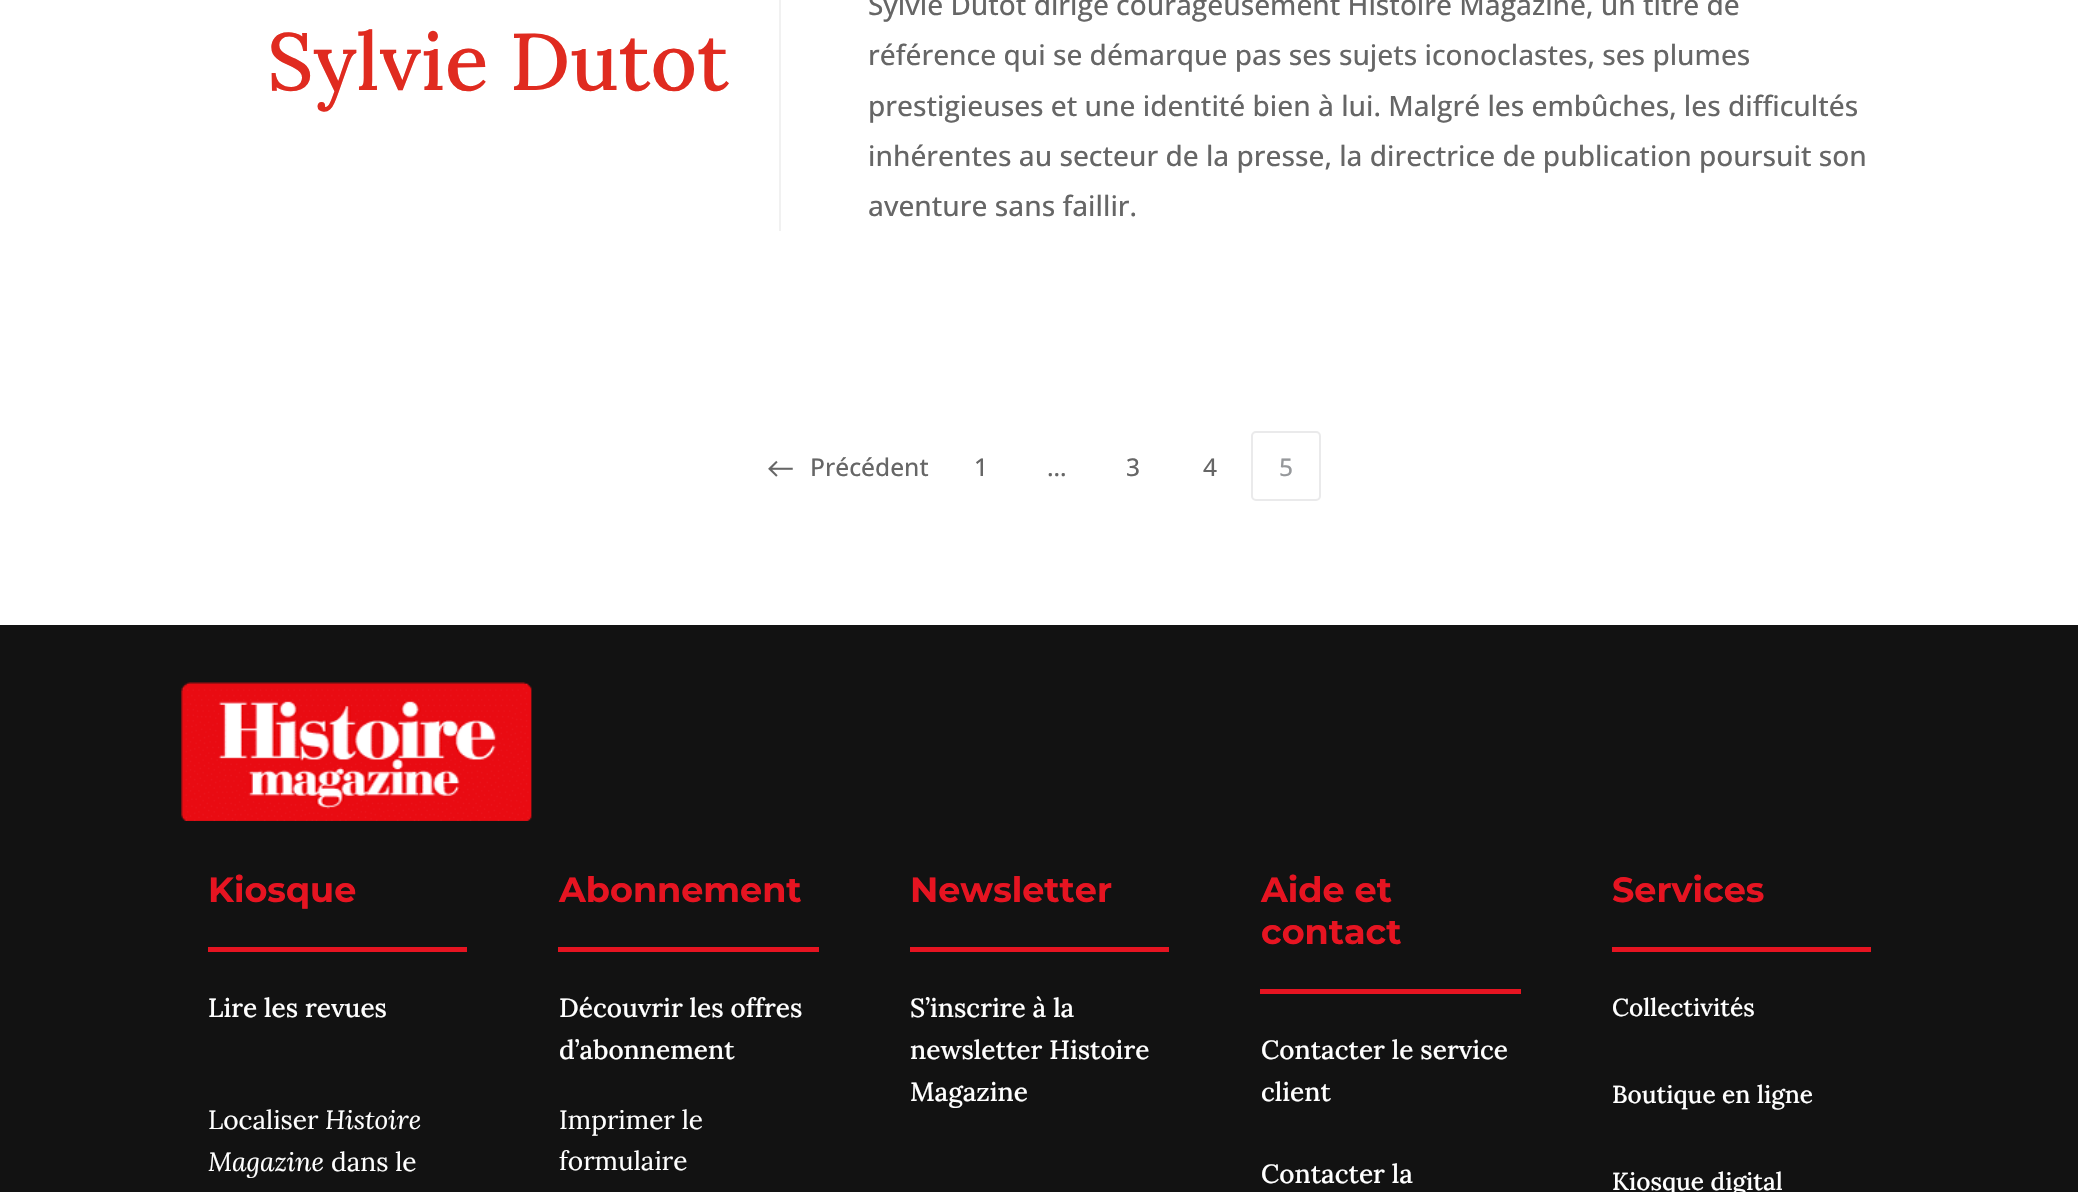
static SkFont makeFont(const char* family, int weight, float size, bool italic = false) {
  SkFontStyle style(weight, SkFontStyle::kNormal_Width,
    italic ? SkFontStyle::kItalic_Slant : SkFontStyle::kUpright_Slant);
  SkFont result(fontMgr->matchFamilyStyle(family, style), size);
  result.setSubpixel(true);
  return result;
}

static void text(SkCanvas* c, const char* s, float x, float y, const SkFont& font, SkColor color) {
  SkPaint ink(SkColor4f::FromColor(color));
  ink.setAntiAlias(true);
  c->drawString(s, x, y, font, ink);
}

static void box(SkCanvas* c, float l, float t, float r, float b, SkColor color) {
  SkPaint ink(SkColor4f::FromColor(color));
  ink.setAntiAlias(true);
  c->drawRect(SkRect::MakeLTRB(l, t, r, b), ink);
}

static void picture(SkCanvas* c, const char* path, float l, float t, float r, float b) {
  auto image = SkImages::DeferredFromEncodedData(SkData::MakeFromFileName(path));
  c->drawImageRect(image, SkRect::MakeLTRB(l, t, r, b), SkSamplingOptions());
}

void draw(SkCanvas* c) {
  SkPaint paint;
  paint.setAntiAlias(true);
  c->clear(0xffffffff);
  SkFont face1 = makeFont("Lora", 500, 80.5f);
  text(c, "Sylvie Dutot", 267, 90, face1, 0xffe02b20);
  box(c, 779, 0, 781, 231, 0xfff1f1f1);
  SkFont face2 = makeFont("Open Sans", 500, 28);
  text(c, "Sylvie Dutot dirige courageusement Histoire Magazine, un titre de", 868, 15, face2, 0xff666666);
  text(c, "référence qui se démarque pas ses sujets iconoclastes, ses plumes", 868, 65, face2, 0xff666666);
  text(c, "prestigieuses et une identité bien à lui. Malgré les embûches, les difficultés", 868, 116, face2, 0xff666666);
  text(c, "inhérentes au secteur de la presse, la directrice de publication poursuit son", 868, 166, face2, 0xff666666);
  text(c, "aventure sans faillir.", 868, 216, face2, 0xff666666);
  picture(c, "img_01.png", 768, 460, 793, 477);
  SkFont face3 = makeFont("Open Sans", 500, 24.5f);
  text(c, "Précédent", 810, 476, face3, 0xff666666);
  text(c, "1", 974, 476, face3, 0xff666666);
  text(c, "…", 1047, 476, face3, 0xff666666);
  text(c, "3", 1126, 476, face3, 0xff666666);
  text(c, "4", 1203, 476, face3, 0xff666666);
  paint.setStyle(SkPaint::kStroke_Style);
  paint.setStrokeWidth(2);
  paint.setColor(0xffeaeaeb);
  c->drawRoundRect(SkRect::MakeLTRB(1252, 432, 1320, 500), 4, 4, paint);
  text(c, "5", 1279, 476, face3, 0xff96989b);
  box(c, 0, 625, 2078, 1192, 0xff121212);
  picture(c, "img_02.png", 181, 682, 532, 821);
  SkFont face4 = makeFont("Montserrat", 700, 35);
  text(c, "Kiosque", 208, 902, face4, 0xffe61421);
  box(c, 208, 947, 467, 952, 0xffe61421);
  SkFont face5 = makeFont("Lora", 500, 26.25f);
  text(c, "Lire les revues", 208, 1017, face5, 0xffffffff);
  SkFont face6 = makeFont("Lora", 400, 26.25f);
  text(c, "Localiser", 208, 1129, face6, 0xffffffff);
  SkFont face7 = makeFont("Lora", 400, 26.25f, true);
  text(c, "Histoire", 325, 1129, face7, 0xffffffff);
  text(c, "Magazine", 208, 1171, face7, 0xffffffff);
  text(c, "dans le", 331, 1171, face6, 0xffffffff);
  text(c, "Abonnement", 559, 902, face4, 0xffe61421);
  box(c, 558, 947, 819, 952, 0xffe61421);
  text(c, "Découvrir les offres", 559, 1017, face5, 0xffffffff);
  text(c, "d’abonnement", 559, 1059, face5, 0xffffffff);
  text(c, "Imprimer le", 559, 1129, face6, 0xffffffff);
  text(c, "formulaire", 559, 1170, face6, 0xffffffff);
  text(c, "Newsletter", 910, 902, face4, 0xffe61421);
  box(c, 910, 947, 1169, 952, 0xffe61421);
  text(c, "S’inscrire à la", 910, 1017, face5, 0xffffffff);
  text(c, "newsletter Histoire", 910, 1059, face5, 0xffffffff);
  text(c, "Magazine", 910, 1101, face5, 0xffffffff);
  text(c, "Aide et", 1261, 902, face4, 0xffe61421);
  text(c, "contact", 1261, 944, face4, 0xffe61421);
  box(c, 1260, 989, 1521, 994, 0xffe61421);
  text(c, "Contacter le service", 1261, 1059, face5, 0xffffffff);
  text(c, "client", 1261, 1101, face5, 0xffffffff);
  text(c, "Contacter la", 1261, 1183, face5, 0xffffffff);
  text(c, "Services", 1612, 902, face4, 0xffe61421);
  box(c, 1612, 947, 1871, 952, 0xffe61421);
  SkFont face8 = makeFont("Lora", 500, 24.5f);
  text(c, "Collectivités", 1612, 1016, face8, 0xffffffff);
  text(c, "Boutique en ligne", 1612, 1103, face8, 0xffffffff);
  text(c, "Kiosque digital", 1612, 1190, face8, 0xffffffff);
}
